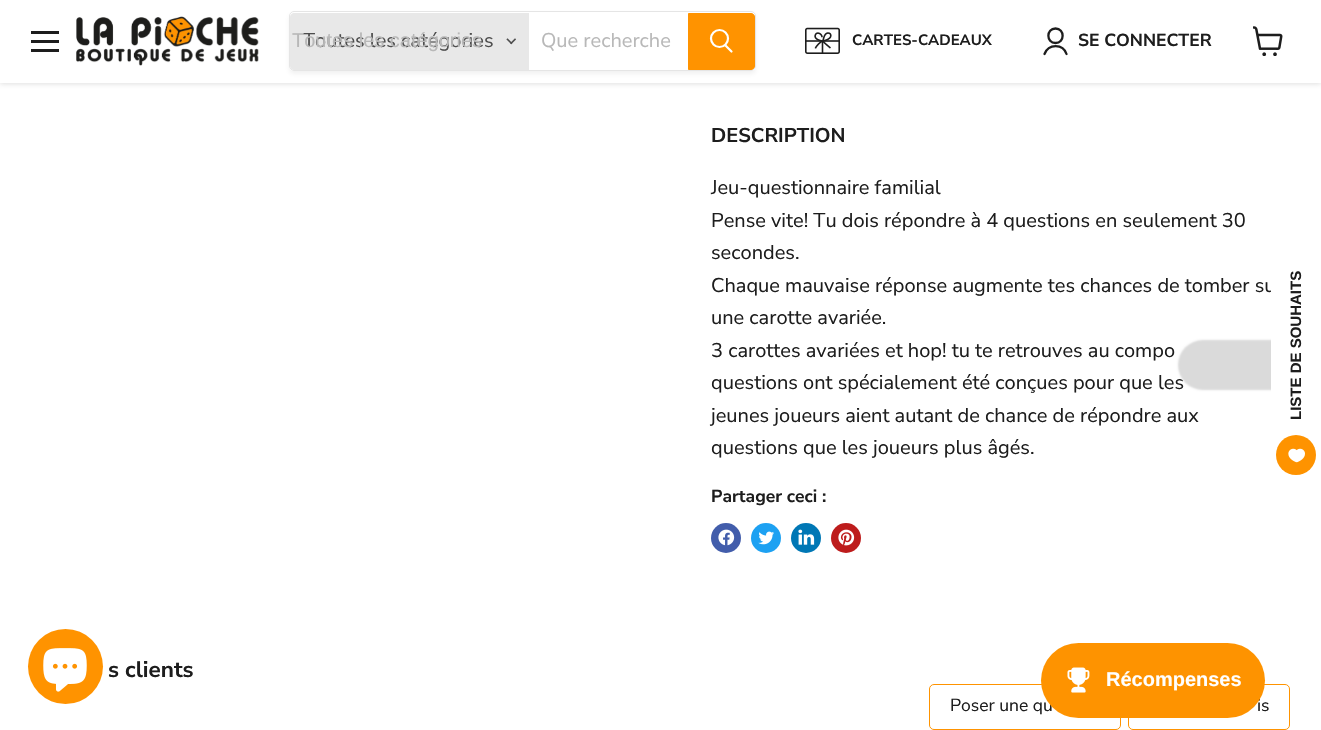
static SkFont makeFont(const char* family, int weight, float size, bool italic = false) {
  SkFontStyle style(weight, SkFontStyle::kNormal_Width,
    italic ? SkFontStyle::kItalic_Slant : SkFontStyle::kUpright_Slant);
  SkFont result(fontMgr->matchFamilyStyle(family, style), size);
  result.setSubpixel(true);
  return result;
}

static void text(SkCanvas* c, const char* s, float x, float y, const SkFont& font, SkColor color) {
  SkPaint ink(SkColor4f::FromColor(color));
  ink.setAntiAlias(true);
  c->drawString(s, x, y, font, ink);
}

static void box(SkCanvas* c, float l, float t, float r, float b, SkColor color) {
  SkPaint ink(SkColor4f::FromColor(color));
  ink.setAntiAlias(true);
  c->drawRect(SkRect::MakeLTRB(l, t, r, b), ink);
}

static void roundBox(SkCanvas* c, float l, float t, float r, float b, float radius, SkColor color) {
  SkPaint ink(SkColor4f::FromColor(color));
  ink.setAntiAlias(true);
  c->drawRoundRect(SkRect::MakeLTRB(l, t, r, b), radius, radius, ink);
}

static void picture(SkCanvas* c, const char* path, float l, float t, float r, float b) {
  auto image = SkImages::DeferredFromEncodedData(SkData::MakeFromFileName(path));
  c->drawImageRect(image, SkRect::MakeLTRB(l, t, r, b), SkSamplingOptions());
}

void draw(SkCanvas* c) {
  SkPaint paint;
  paint.setAntiAlias(true);
  c->clear(0xffffffff);
  paint.setColor(0x40808080);
  paint.setMaskFilter(SkMaskFilter::MakeBlur(kNormal_SkBlurStyle, 2.5f));
  c->drawRect(SkRect::MakeLTRB(0, 1, 1321, 84), paint);
  paint.setMaskFilter(nullptr);
  box(c, 0, 0, 1321, 83, 0xffffffff);
  box(c, 31, 31, 59, 34, 0xff1d1d1d);
  box(c, 31, 40, 59, 43, 0xff1d1d1d);
  box(c, 31, 49, 59, 52, 0xff1d1d1d);
  picture(c, "img_01.png", 76, 16, 259, 66);
  c->save();
  c->clipPath(SkPathBuilder(SkPathFillType::kEvenOdd).moveTo(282, 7).lineTo(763, 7).lineTo(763, 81).lineTo(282, 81).close().moveTo(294, 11).lineTo(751, 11).cubicTo(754, 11, 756, 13, 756, 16).lineTo(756, 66).cubicTo(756, 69, 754, 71, 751, 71).lineTo(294, 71).cubicTo(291, 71, 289, 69, 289, 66).lineTo(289, 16).cubicTo(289, 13, 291, 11, 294, 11).close().detach(), true);
  paint.setColor(0x1c808080);
  paint.setMaskFilter(SkMaskFilter::MakeBlur(kNormal_SkBlurStyle, 2));
  c->drawRoundRect(SkRect::MakeLTRB(289, 14, 756, 74), 5, 5, paint);
  paint.setMaskFilter(nullptr);
  c->restore();
  paint.setStyle(SkPaint::kStroke_Style);
  paint.setStrokeWidth(1);
  paint.setColor(0xffe5e5e5);
  c->drawRoundRect(SkRect::MakeLTRB(289.5f, 11.5f, 755.5f, 70.5f), 4.5f, 4.5f, paint);
  paint.setStyle(SkPaint::kFill_Style);
  paint.setColor(0xffe8e8e8);
  c->drawPath(SkPathBuilder().moveTo(294, 13).lineTo(529, 13).lineTo(529, 70).lineTo(294, 70).cubicTo(292, 70, 290, 68, 290, 66).lineTo(290, 17).cubicTo(290, 15, 292, 13, 294, 13).close().detach(), paint);
  SkFont face1 = makeFont("Nunito Sans", 400, 20);
  text(c, "Toutes les catégories", 303, 47, face1, 0xff4d4d4d);
  SkFont face2 = makeFont("Liberation Sans", 400, 20);
  text(c, "Toutes les catégories", 292, 47, face2, 0xffb8b8b8);
  picture(c, "img_02.png", 506, 38, 516, 45);
  text(c, "Que recherche", 541, 47, face1, 0xffb8b8b8);
  paint.setColor(0xffff9300);
  c->drawPath(SkPathBuilder().moveTo(688.5f, 13.5f).lineTo(751, 13.5f).cubicTo(753, 13.5f, 754.5f, 15, 754.5f, 17).lineTo(754.5f, 66).cubicTo(754.5f, 68, 753, 69.5f, 751, 69.5f).lineTo(688.5f, 69.5f).close().detach(), paint);
  paint.setStyle(SkPaint::kStroke_Style);
  c->drawPath(SkPathBuilder().moveTo(688.5f, 13.5f).lineTo(751, 13.5f).cubicTo(753, 13.5f, 754.5f, 15, 754.5f, 17).lineTo(754.5f, 66).cubicTo(754.5f, 68, 753, 69.5f, 751, 69.5f).lineTo(688.5f, 69.5f).close().detach(), paint);
  paint.setStrokeWidth(2.2f);
  paint.setStrokeCap(SkPaint::kRound_Cap);
  paint.setColor(0xffffffff);
  c->drawPath(SkPathBuilder().moveTo(731.5f, 51.5f).lineTo(725.5f, 45.5f).detach(), paint);
  paint.setStrokeCap(SkPaint::kButt_Cap);
  c->drawCircle(719.5f, 38.5f, 8.5f, paint);
  picture(c, "img_03.png", 805, 27, 840, 54);
  SkFont face3 = makeFont("Nunito Sans", 700, 15);
  text(c, "CARTES-CADEAUX", 852, 45, face3, 0xff1d1d1d);
  paint.setStrokeWidth(2.3f);
  paint.setStrokeCap(SkPaint::kRound_Cap);
  paint.setStrokeJoin(SkPaint::kRound_Join);
  paint.setColor(0xff1d1d1d);
  c->drawPath(SkPathBuilder().moveTo(1055.5f, 43).cubicTo(1065, 43, 1065, 28.5f, 1055.5f, 28.5f).cubicTo(1046, 28.5f, 1046, 43, 1055.5f, 43).close().moveTo(1066.5f, 54).cubicTo(1063, 43.5f, 1048.5f, 43.5f, 1044.5f, 54).detach(), paint);
  SkFont face4 = makeFont("Nunito Sans", 700, 17.5f);
  text(c, "SE CONNECTER", 1078, 46, face4, 0xff1d1d1d);
  picture(c, "img_04.png", 1253, 26, 1283, 56);
  SkFont face5 = makeFont("Nunito Sans", 700, 20);
  text(c, "DESCRIPTION", 711, 142, face5, 0xff1d1d1d);
  text(c, "Jeu-questionnaire familial", 711, 194, face1, 0xff1d1d1d);
  text(c, "Pense vite! Tu dois répondre à 4 questions en seulement 30", 711, 227, face1, 0xff1d1d1d);
  text(c, "secondes.", 711, 259, face1, 0xff1d1d1d);
  text(c, "Chaque mauvaise réponse augmente tes chances de tomber su", 711, 292, face1, 0xff1d1d1d);
  text(c, "une carotte avariée.", 711, 324, face1, 0xff1d1d1d);
  text(c, "3 carottes avariées et hop! tu te retrouves au compo", 711, 357, face1, 0xff1d1d1d);
  text(c, "questions ont spécialement été conçues pour que les", 711, 389, face1, 0xff1d1d1d);
  text(c, "jeunes joueurs aient autant de chance de répondre aux", 711, 422, face1, 0xff1d1d1d);
  text(c, "questions que les joueurs plus âgés.", 711, 454, face1, 0xff1d1d1d);
  text(c, "Partager ceci :", 711, 502, face4, 0xff1d1d1d);
  paint.setStyle(SkPaint::kFill_Style);
  paint.setColor(0xff425dab);
  c->drawCircle(726, 538, 15, paint);
  picture(c, "img_05.png", 718, 529, 735, 546);
  paint.setColor(0xff1da1f2);
  c->drawCircle(766, 538, 15, paint);
  picture(c, "img_06.png", 758, 531, 774, 545);
  paint.setColor(0xff0077b5);
  c->drawCircle(806, 538, 15, paint);
  picture(c, "img_07.png", 798, 529, 815, 545);
  paint.setColor(0xffbd1c1c);
  c->drawCircle(846, 538, 15, paint);
  picture(c, "img_08.png", 838, 529, 855, 546);
  SkFont face6 = makeFont("Nunito Sans", 700, 22.5f);
  text(c, "s clients", 108, 677, face6, 0xff1d1d1d);
  paint.setStyle(SkPaint::kStroke_Style);
  paint.setStrokeWidth(1);
  paint.setStrokeCap(SkPaint::kButt_Cap);
  paint.setStrokeJoin(SkPaint::kMiter_Join);
  paint.setColor(0xfffe9300);
  c->drawRoundRect(SkRect::MakeLTRB(929.5f, 684.5f, 1120.5f, 729.5f), 4.5f, 4.5f, paint);
  SkFont face7 = makeFont("Nunito Sans", 400, 17.5f);
  text(c, "Poser une qu", 950, 711, face7, 0xff1d1d1d);
  c->drawRoundRect(SkRect::MakeLTRB(1128.5f, 684.5f, 1289.5f, 729.5f), 4.5f, 4.5f, paint);
  text(c, "is", 1257, 711, face7, 0xff1d1d1d);
  paint.setStyle(SkPaint::kFill_Style);
  paint.setColor(0xffff9300);
  c->drawCircle(65.5f, 666.5f, 37.5f, paint);
  picture(c, "img_09.png", 43, 648, 87, 692);
  paint.setColor(0xffdadada);
  paint.setMaskFilter(SkMaskFilter::MakeBlur(kNormal_SkBlurStyle, 1));
  c->drawRoundRect(SkRect::MakeLTRB(1178, 340, 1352, 390), 28, 28, paint);
  paint.setMaskFilter(nullptr);
  paint.setColor(0xffffffff);
  c->drawPath(SkPathBuilder().moveTo(1271, 456).lineTo(1271, 274).cubicTo(1271, 259, 1284, 246, 1299, 246).lineTo(1321, 246).lineTo(1321, 484).lineTo(1299, 484).cubicTo(1284, 484, 1271, 471, 1271, 456).close().detach(), paint);
  SkFont face8 = makeFont("Liberation Sans", 700, 15);
  c->save();
  c->rotate(-90, 1301, 420);
  text(c, "LISTE DE SOUHAITS", 1301, 420, face8, 0xff1d1d1d);
  c->restore();
  paint.setColor(0xfffe9300);
  c->drawCircle(1296, 455, 20, paint);
  picture(c, "img_10.png", 1288, 448, 1305, 463);
  roundBox(c, 1041, 643, 1265, 718, 37.5f, 0xfffe9300);
  picture(c, "img_11.png", 1067, 667, 1090, 693);
  SkFont face9 = makeFont("Liberation Sans", 700, 20);
  text(c, "Récompenses", 1106, 686, face9, 0xffffffff);
}
